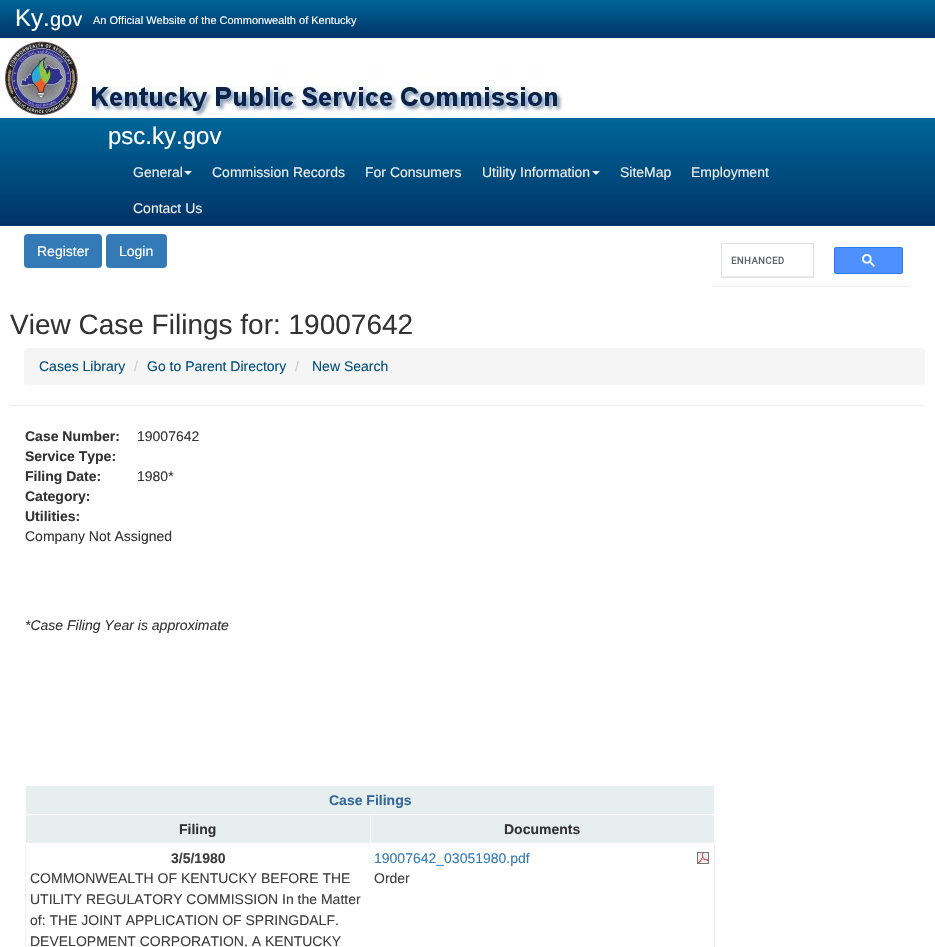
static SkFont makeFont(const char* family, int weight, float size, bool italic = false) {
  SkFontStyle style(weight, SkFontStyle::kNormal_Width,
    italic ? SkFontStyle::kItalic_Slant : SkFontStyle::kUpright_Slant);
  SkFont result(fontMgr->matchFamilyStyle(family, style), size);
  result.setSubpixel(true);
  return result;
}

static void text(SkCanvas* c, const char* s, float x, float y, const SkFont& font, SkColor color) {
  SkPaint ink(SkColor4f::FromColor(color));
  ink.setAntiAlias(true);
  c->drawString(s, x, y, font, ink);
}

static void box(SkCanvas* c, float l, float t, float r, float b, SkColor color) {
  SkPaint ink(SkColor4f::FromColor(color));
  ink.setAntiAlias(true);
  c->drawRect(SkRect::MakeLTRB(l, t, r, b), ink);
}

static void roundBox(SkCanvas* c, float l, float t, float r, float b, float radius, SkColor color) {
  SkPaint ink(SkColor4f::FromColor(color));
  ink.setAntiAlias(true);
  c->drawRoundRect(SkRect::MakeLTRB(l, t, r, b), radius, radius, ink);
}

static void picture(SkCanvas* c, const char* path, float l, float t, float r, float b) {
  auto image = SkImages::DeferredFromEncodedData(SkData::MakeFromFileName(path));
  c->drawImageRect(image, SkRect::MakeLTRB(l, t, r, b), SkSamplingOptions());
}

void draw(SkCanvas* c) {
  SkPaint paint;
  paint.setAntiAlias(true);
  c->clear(0xffffffff);
  {
    const SkColor colors[] = {0xff006699, 0xff003366};
    const float stops[] = {0, 1};
    const SkPoint ends[] = {{468, 0}, {468, 38}};
    paint.setShader(SkGradientShader::MakeLinear(ends, colors, stops, 2, SkTileMode::kClamp));
    paint.setAlpha(255);
  }
  c->drawRect(SkRect::MakeLTRB(0, 0, 935, 38), paint);
  SkFont face1 = makeFont("Liberation Sans", 400, 24);
  text(c, "Ky.", 15, 26, face1, 0xffffffff);
  SkFont face2 = makeFont("Liberation Sans", 400, 20);
  text(c, "gov", 50, 26, face2, 0xffffffff);
  SkFont face3 = makeFont("Liberation Sans", 400, 11);
  text(c, "An Official Website of the Commonwealth of Kentucky", 93, 24, face3, 0xffffffff);
  picture(c, "img_01.png", 0, 38, 564, 118);
  {
    const SkColor colors[] = {0xff006699, 0xff003366};
    const float stops[] = {0, 1};
    const SkPoint ends[] = {{468, 118}, {468, 226}};
    paint.setShader(SkGradientShader::MakeLinear(ends, colors, stops, 2, SkTileMode::kClamp));
    paint.setAlpha(255);
  }
  c->drawRect(SkRect::MakeLTRB(0, 118, 935, 226), paint);
  text(c, "psc.ky.gov", 108, 144, face1, 0xffffffff);
  SkFont face4 = makeFont("Liberation Sans", 400, 14);
  text(c, "General", 133, 177, face4, 0xffefefef);
  paint.setShader(nullptr);
  paint.setColor(0xffefefef);
  c->drawPath(SkPathBuilder().moveTo(184, 171).lineTo(192, 171).lineTo(188, 175).close().detach(), paint);
  text(c, "Commission Records", 212, 177, face4, 0xffefefef);
  text(c, "For Consumers", 365, 177, face4, 0xffefefef);
  text(c, "Utility Information", 482, 177, face4, 0xffefefef);
  c->drawPath(SkPathBuilder().moveTo(592, 171).lineTo(600, 171).lineTo(596, 175).close().detach(), paint);
  text(c, "SiteMap", 620, 177, face4, 0xffefefef);
  text(c, "Employment", 691, 177, face4, 0xffefefef);
  text(c, "Contact Us", 133, 213, face4, 0xffefefef);
  roundBox(c, 24, 234, 102, 268, 4, 0xff337ab7);
  text(c, "Register", 37, 256, face4, 0xffffffff);
  roundBox(c, 106, 234, 167, 268, 4, 0xff337ab7);
  text(c, "Login", 119, 256, face4, 0xffffffff);
  paint.setStyle(SkPaint::kStroke_Style);
  paint.setStrokeWidth(1);
  paint.setColor(0xffdfe1e5);
  c->drawRect(SkRect::MakeLTRB(721.5f, 243.5f, 813.5f, 277.5f), paint);
  picture(c, "img_02.png", 731, 256, 784, 264);
  box(c, 721, 276, 813, 277, 0xffeeeeee);
  box(c, 712, 286, 910, 287, 0xffeeeeee);
  paint.setStyle(SkPaint::kFill_Style);
  paint.setColor(0xff4d90fe);
  c->drawRoundRect(SkRect::MakeLTRB(834.5f, 247.5f, 902.5f, 273.5f), 1.5f, 1.5f, paint);
  paint.setStyle(SkPaint::kStroke_Style);
  paint.setColor(0xff3079ed);
  c->drawRoundRect(SkRect::MakeLTRB(834.5f, 247.5f, 902.5f, 273.5f), 1.5f, 1.5f, paint);
  picture(c, "img_03.png", 862, 254, 875, 267);
  SkFont face5 = makeFont("Liberation Sans", 400, 28);
  text(c, "View Case Filings for: 19007642", 10, 334, face5, 0xff333333);
  roundBox(c, 24, 348, 925, 385, 4, 0xfff5f5f5);
  text(c, "Cases Library", 39, 371, face4, 0xff014f81);
  text(c, "/", 134, 371, face4, 0xffcccccc);
  text(c, "Go to Parent Directory", 147, 371, face4, 0xff014f81);
  text(c, "/", 295, 371, face4, 0xffcccccc);
  text(c, "New Search", 312, 371, face4, 0xff014f81);
  box(c, 10, 405, 925, 406, 0xffeeeeee);
  SkFont face6 = makeFont("Liberation Sans", 700, 14);
  text(c, "Case Number:", 25, 441, face6, 0xff333333);
  text(c, "19007642", 137, 441, face4, 0xff333333);
  text(c, "Service Type:", 25, 461, face6, 0xff333333);
  text(c, "Filing Date:", 25, 481, face6, 0xff333333);
  text(c, "1980*", 137, 481, face4, 0xff333333);
  text(c, "Category:", 25, 501, face6, 0xff333333);
  text(c, "Utilities:", 25, 521, face6, 0xff333333);
  text(c, "Company Not Assigned", 25, 541, face4, 0xff333333);
  SkFont face7 = makeFont("Liberation Sans", 400, 14, true);
  text(c, "*Case Filing Year is approximate", 25, 630, face7, 0xff333333);
  box(c, 714, 844, 715, 947, 0xfff0f0f0);
  box(c, 25, 844, 26, 947, 0xfff0f0f0);
  box(c, 26, 786, 714, 814, 0xffe6eeee);
  text(c, "Case Filings", 329, 805, face6, 0xff336699);
  box(c, 26, 815, 370, 843, 0xffe6eeee);
  text(c, "Filing", 179, 834, face6, 0xff333333);
  box(c, 371, 815, 714, 843, 0xffe6eeee);
  text(c, "Documents", 504, 834, face6, 0xff333333);
  text(c, "3/5/1980", 171, 863, face6, 0xff3d3d3d);
  text(c, "COMMONWEALTH OF KENTUCKY BEFORE THE", 30, 883, face4, 0xff3d3d3d);
  text(c, "UTILITY REGULATORY COMMISSION In the Matter", 30, 904, face4, 0xff3d3d3d);
  text(c, "of: THE JOINT APPLICATION OF SPRINGDALF.", 30, 925, face4, 0xff3d3d3d);
  text(c, "DEVELOPMENT CORPORATION, A KENTUCKY", 30, 946, face4, 0xff3d3d3d);
  picture(c, "img_04.png", 697, 852, 709, 864);
  text(c, "19007642_03051980.pdf", 374, 863, face4, 0xff337ab7);
  text(c, "Order", 374, 883, face4, 0xff3d3d3d);
}
